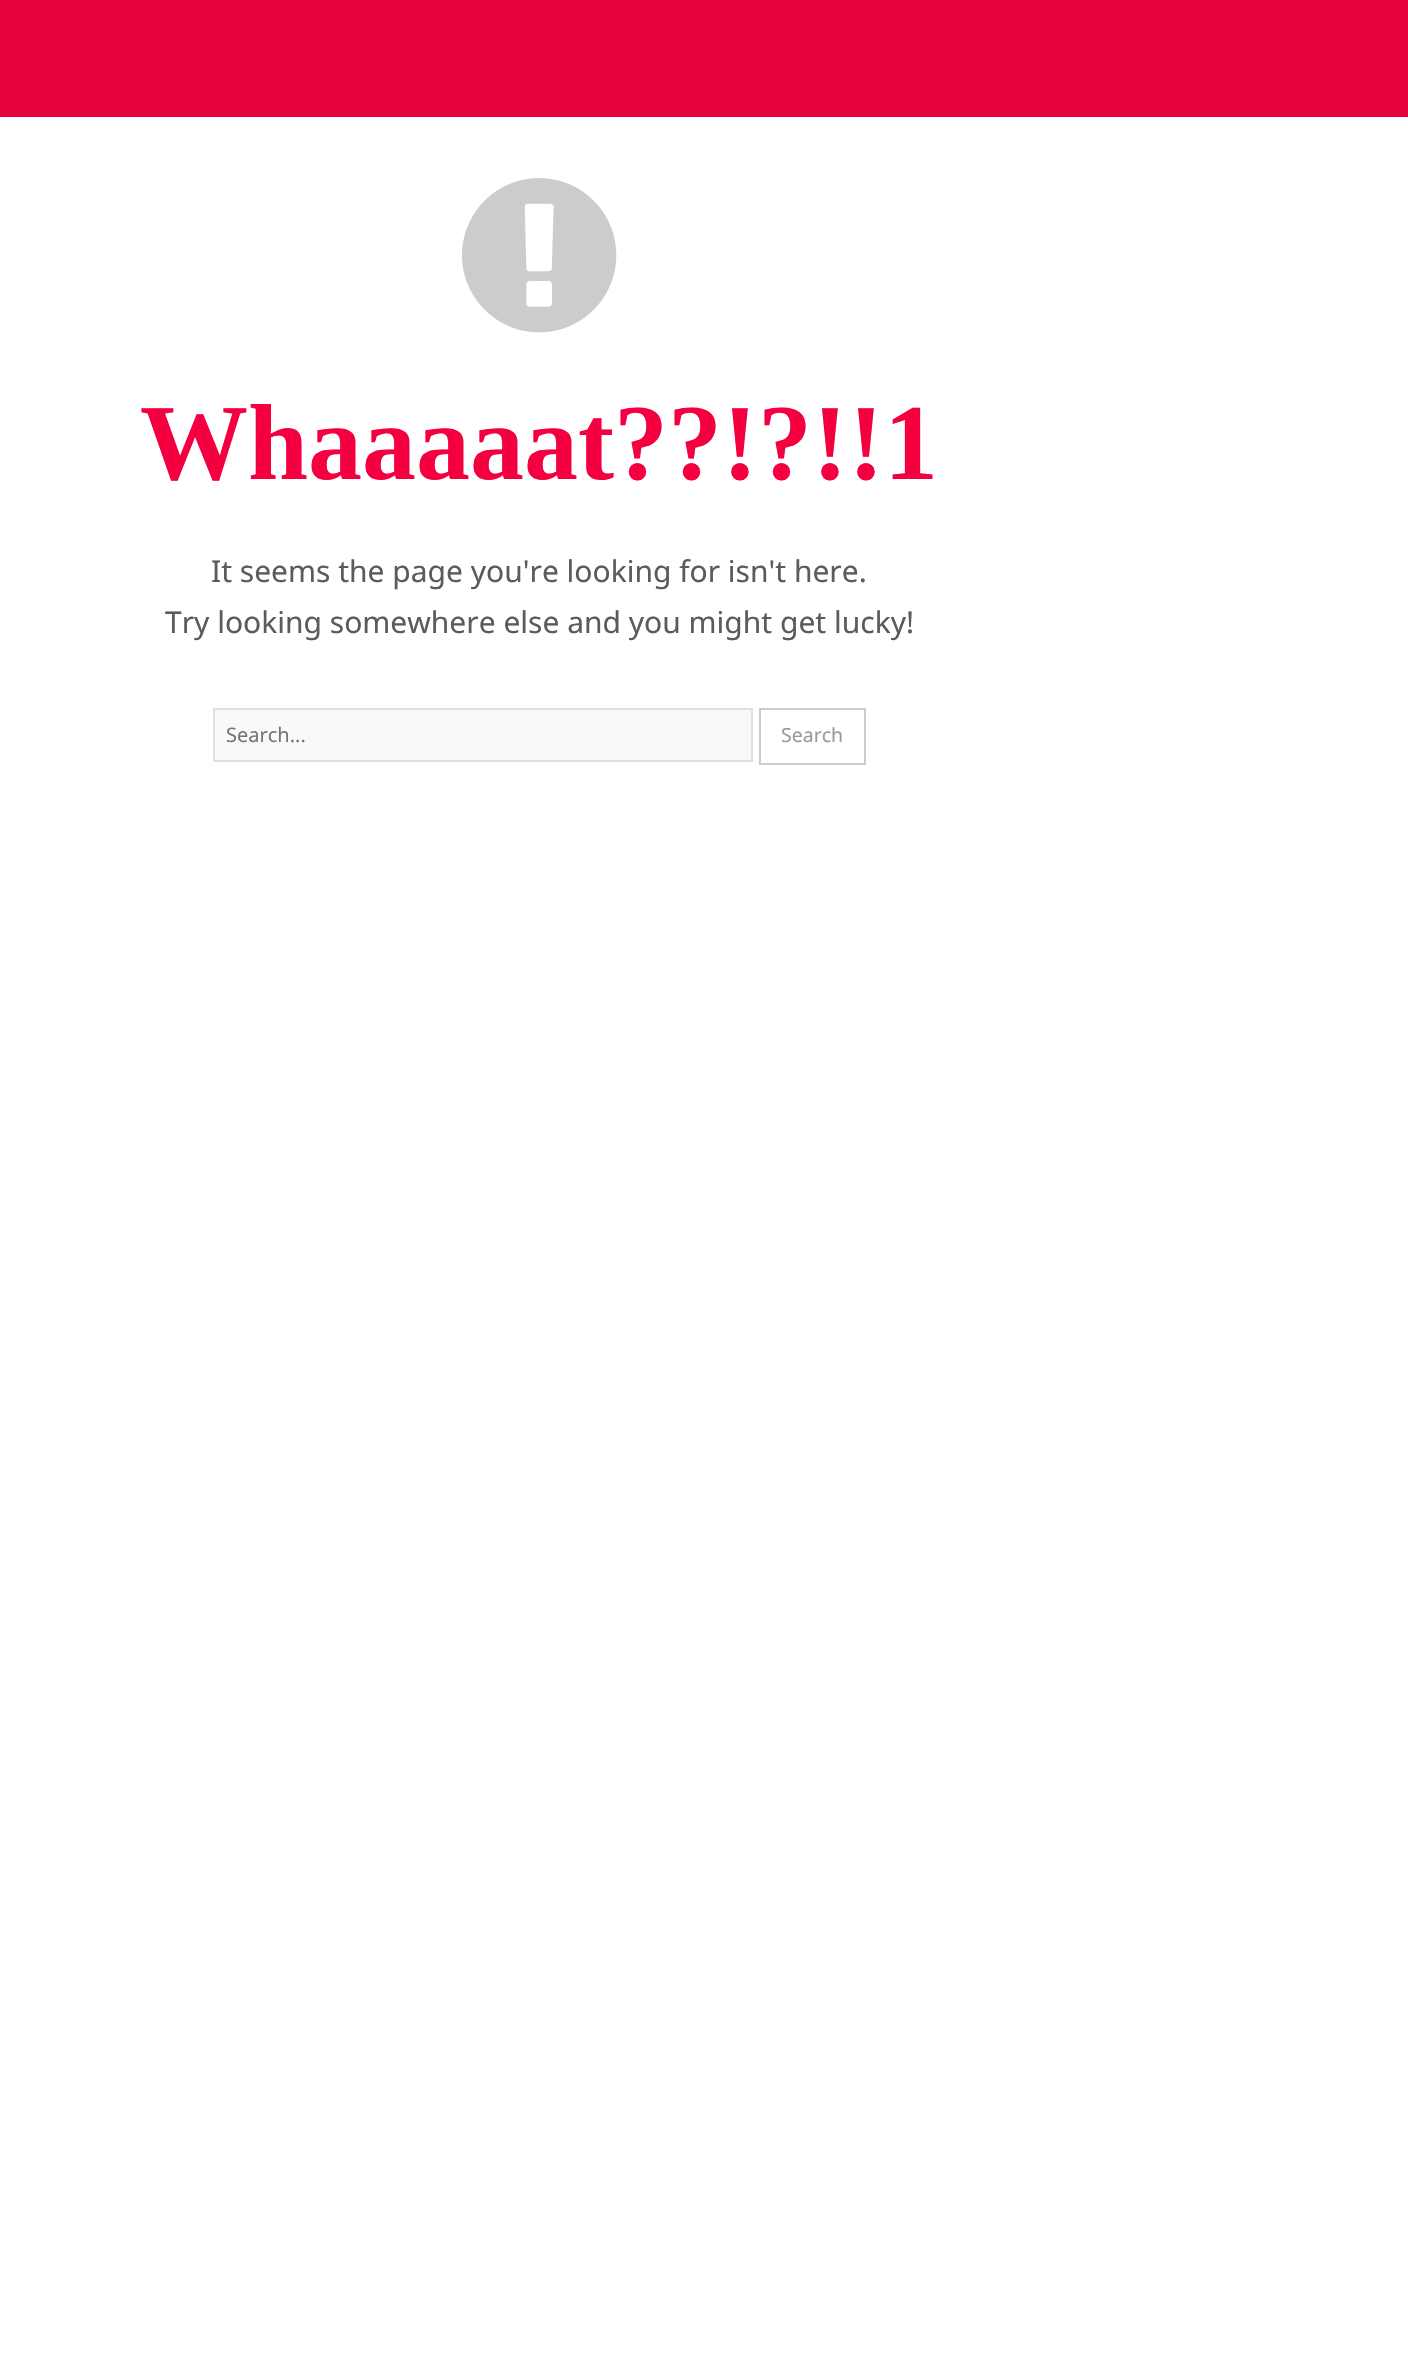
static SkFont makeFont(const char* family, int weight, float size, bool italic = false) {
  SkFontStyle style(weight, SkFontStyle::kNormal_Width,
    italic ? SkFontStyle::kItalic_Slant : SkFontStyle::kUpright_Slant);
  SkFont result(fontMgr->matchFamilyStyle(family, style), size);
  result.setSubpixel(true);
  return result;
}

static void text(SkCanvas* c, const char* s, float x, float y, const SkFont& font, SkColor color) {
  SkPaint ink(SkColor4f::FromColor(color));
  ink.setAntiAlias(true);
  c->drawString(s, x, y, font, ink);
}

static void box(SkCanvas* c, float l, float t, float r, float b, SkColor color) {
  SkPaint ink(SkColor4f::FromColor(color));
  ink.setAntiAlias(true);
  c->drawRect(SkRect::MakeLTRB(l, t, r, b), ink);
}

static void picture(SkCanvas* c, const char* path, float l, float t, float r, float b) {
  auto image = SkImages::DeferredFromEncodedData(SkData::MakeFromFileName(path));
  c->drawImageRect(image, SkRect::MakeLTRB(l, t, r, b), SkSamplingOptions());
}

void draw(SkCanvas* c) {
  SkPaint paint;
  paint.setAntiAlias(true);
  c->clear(0xffffffff);
  box(c, 0, 0, 1408, 117, 0xffe8003d);
  picture(c, "img_01.png", 462, 178, 617, 333);
  SkFont face1 = makeFont("Liberation Serif", 700, 108);
  text(c, "Whaaaaat?\077!?!!1", 140, 479, face1, 0xfff40041);
  SkFont face2 = makeFont("Noto Sans", 400, 30);
  text(c, "It seems the page you're looking for isn't here.", 211, 582, face2, 0xff5b5b5b);
  text(c, "Try looking somewhere else and you might get lucky!", 165, 633, face2, 0xff5b5b5b);
  paint.setColor(0xfff9f9f9);
  c->drawRect(SkRect::MakeLTRB(214, 709, 752, 761), paint);
  paint.setStyle(SkPaint::kStroke_Style);
  paint.setStrokeWidth(2);
  paint.setColor(0xffe0e0e0);
  c->drawRect(SkRect::MakeLTRB(214, 709, 752, 761), paint);
  SkFont face3 = makeFont("Noto Sans", 400, 20);
  text(c, "Search...", 226, 742, face3, 0xff757575);
  paint.setColor(0xffcccccc);
  c->drawRect(SkRect::MakeLTRB(760, 709, 865, 764), paint);
  SkFont face4 = makeFont("Noto Sans", 400, 19.5f);
  text(c, "Search", 781, 742, face4, 0xff999999);
}
